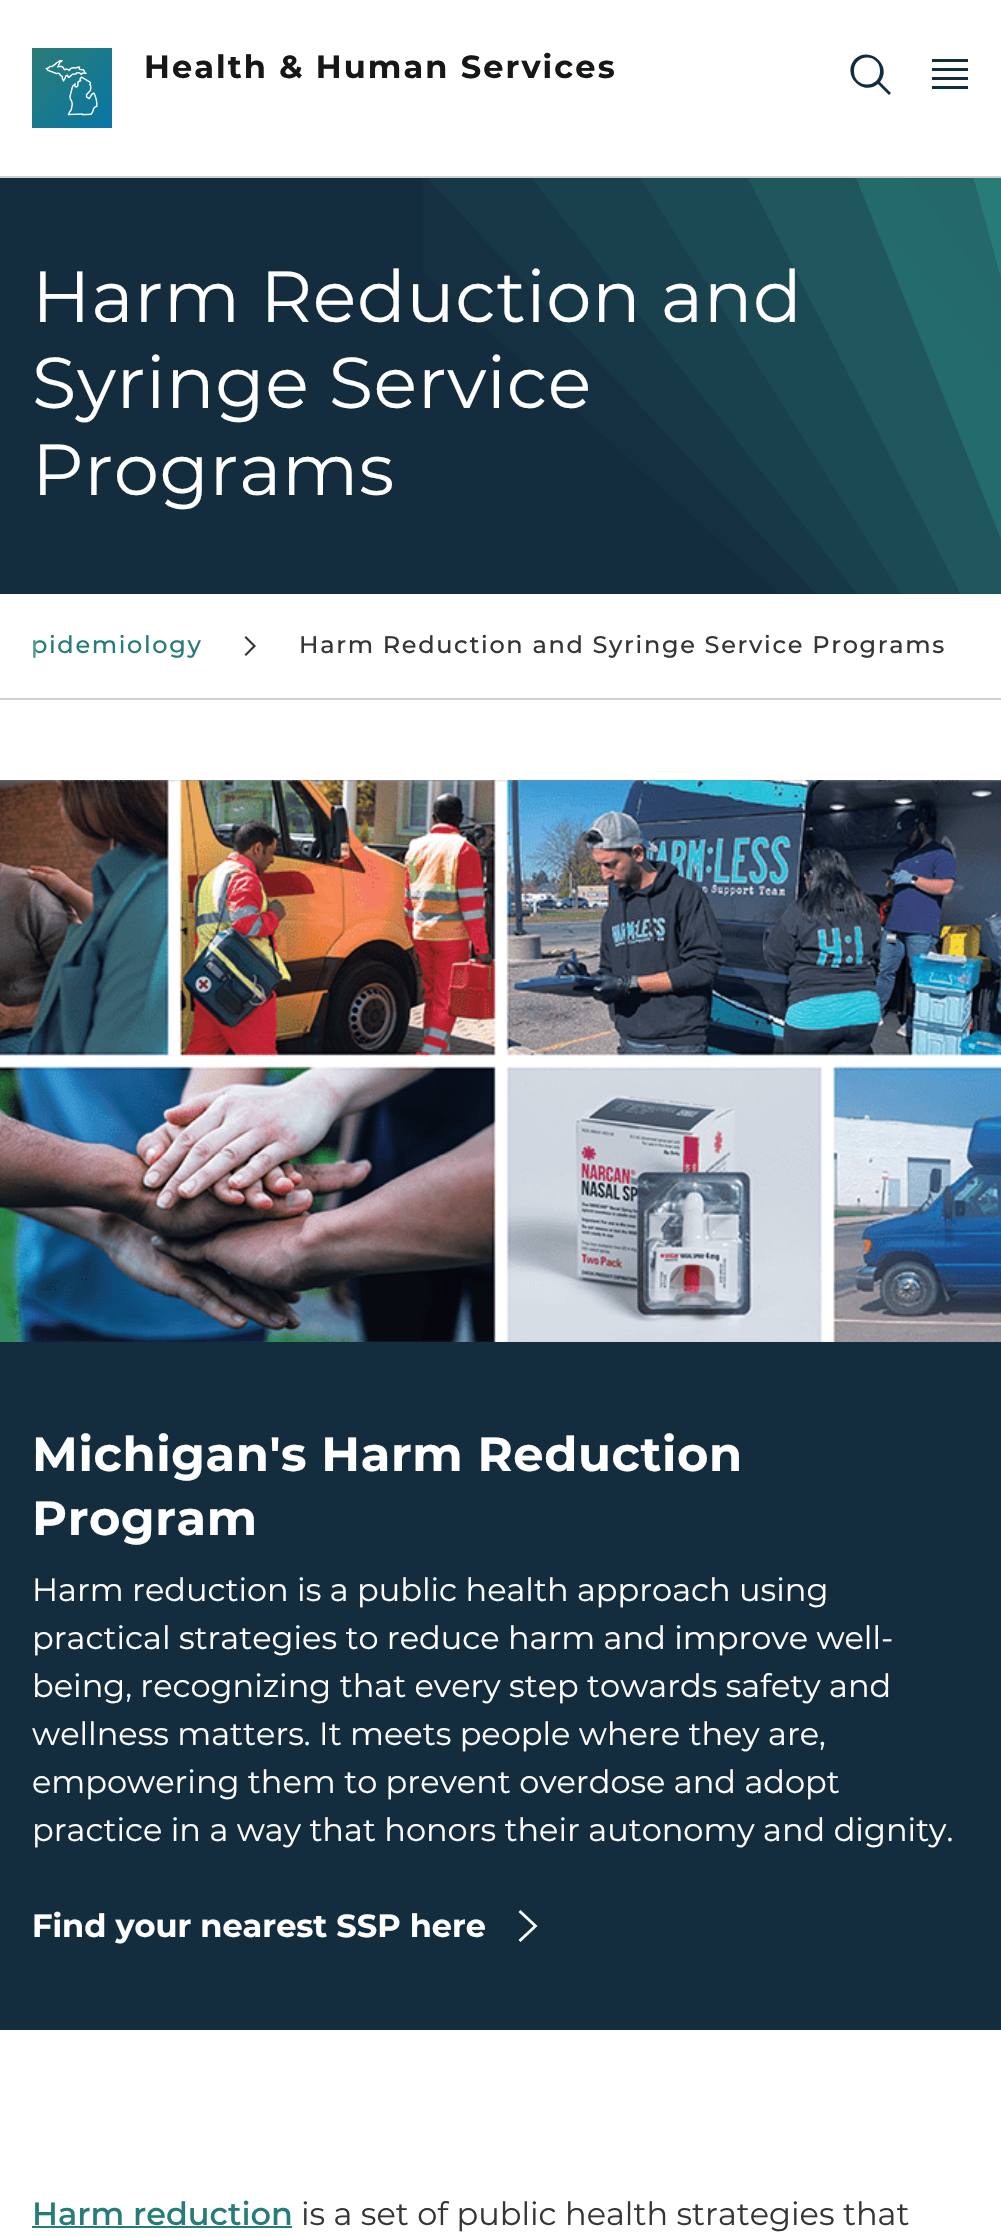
static SkFont makeFont(const char* family, int weight, float size, bool italic = false) {
  SkFontStyle style(weight, SkFontStyle::kNormal_Width,
    italic ? SkFontStyle::kItalic_Slant : SkFontStyle::kUpright_Slant);
  SkFont result(fontMgr->matchFamilyStyle(family, style), size);
  result.setSubpixel(true);
  return result;
}

static void text(SkCanvas* c, const char* s, float x, float y, const SkFont& font, SkColor color) {
  SkPaint ink(SkColor4f::FromColor(color));
  ink.setAntiAlias(true);
  c->drawString(s, x, y, font, ink);
}

static void spacedText(SkCanvas* c, const char* s, float x, float y, const SkFont& font, const SkPaint& ink, float letter, float word) {
  std::vector<SkGlyphID> glyphs(font.countText(s, strlen(s), SkTextEncoding::kUTF8));
  std::vector<float> xs(glyphs.size());
  font.textToGlyphs(s, strlen(s), SkTextEncoding::kUTF8, glyphs);
  font.getXPos(glyphs, xs, x);
  float extra = 0;
  for (size_t i = 0; i < glyphs.size(); i++) {
    xs[i] += extra;
    extra += letter + word * (glyphs[i] == font.unicharToGlyph(' '));
  }
  c->drawTextBlob(SkTextBlob::MakeFromPosHGlyphs(glyphs, xs, y, font), 0, 0, ink);
}

static void box(SkCanvas* c, float l, float t, float r, float b, SkColor color) {
  SkPaint ink(SkColor4f::FromColor(color));
  ink.setAntiAlias(true);
  c->drawRect(SkRect::MakeLTRB(l, t, r, b), ink);
}

static void picture(SkCanvas* c, const char* path, float l, float t, float r, float b) {
  auto image = SkImages::DeferredFromEncodedData(SkData::MakeFromFileName(path));
  c->drawImageRect(image, SkRect::MakeLTRB(l, t, r, b), SkSamplingOptions());
}

void draw(SkCanvas* c) {
  SkPaint paint;
  paint.setAntiAlias(true);
  c->clear(0xffffffff);
  box(c, 0, 176, 1001, 178, 0xffd0d0d0);
  picture(c, "img_01.png", 32, 48, 112, 128);
  SkFont face1 = makeFont("Montserrat", 700, 32);
  paint.setColor(0xff161818);
  spacedText(c, "Health & Human Services", 144, 78, face1, paint, 2.1f, 0);
  paint.setColor(0xff142d3e);
  c->drawPath(SkPathBuilder().moveTo(891, 93).lineTo(880, 82).cubicTo(893, 66, 870, 45, 855, 59).cubicTo(841, 74, 862, 97, 878, 84).lineTo(889, 95).close().moveTo(854, 71).cubicTo(854, 53, 880, 53, 880, 71).cubicTo(880, 89, 854, 89, 854, 71).close().detach(), paint);
  box(c, 932, 86, 968, 89, 0xff142d3e);
  box(c, 932, 68, 968, 71, 0xff142d3e);
  box(c, 932, 77, 968, 80, 0xff142d3e);
  box(c, 932, 59, 968, 62, 0xff142d3e);
  box(c, 0, 178, 1001, 594, 0xff142d3e);
  picture(c, "img_02.png", 423, 178, 1001, 594);
  SkFont face2 = makeFont("Montserrat", 400, 72);
  paint.setColor(0xffffffff);
  spacedText(c, "Harm Reduction and", 32, 322, face2, paint, 0.6f, 0);
  spacedText(c, "Syringe Service", 32, 408, face2, paint, 0.6f, 0);
  spacedText(c, "Programs", 32, 495, face2, paint, 0.6f, 0);
  box(c, 0, 698, 1001, 700, 0xffd0d0d0);
  SkFont face3 = makeFont("Montserrat", 500, 24);
  paint.setColor(0xff277c78);
  spacedText(c, "pidemiology", 31, 653, face3, paint, 1.65f, 0);
  paint.setColor(0xff353535);
  c->drawPath(SkPathBuilder().moveTo(256, 646).lineTo(246, 656).lineTo(244.5f, 654.5f).lineTo(253, 646).lineTo(244.5f, 637.5f).lineTo(246, 636).close().detach(), paint);
  spacedText(c, "Harm Reduction and Syringe Service Programs", 299, 653, face3, paint, 1.65f, 0);
  {
    const SkColor colors[] = {0xffffffff, 0x00ffffff};
    const float stops[] = {0.4f, 0.8f};
    const SkPoint ends[] = {{0, 646}, {48, 646}};
    paint.setShader(SkGradientShader::MakeLinear(ends, colors, stops, 2, SkTileMode::kClamp));
    paint.setAlpha(255);
  }
  c->drawRect(SkRect::MakeLTRB(33, 640, 38, 658), paint);
  picture(c, "img_03.png", 0, 780, 1001, 1342);
  box(c, 0, 1342, 1001, 2030, 0xff142d3e);
  SkFont face4 = makeFont("Montserrat", 700, 48);
  paint.setShader(nullptr);
  paint.setColor(0xffffffff);
  spacedText(c, "Michigan's Harm Reduction", 32, 1471, face4, paint, 0.6f, 0);
  spacedText(c, "Program", 32, 1535, face4, paint, 0.6f, 0);
  SkFont face5 = makeFont("Montserrat", 400, 32);
  text(c, "Harm reduction is a public health approach using", 32, 1601, face5, 0xffffffff);
  text(c, "practical strategies to reduce harm and improve well-", 32, 1649, face5, 0xffffffff);
  text(c, "being, recognizing that every step towards safety and", 32, 1697, face5, 0xffffffff);
  text(c, "wellness matters. It meets people where they are,", 32, 1745, face5, 0xffffffff);
  text(c, "empowering them to prevent overdose and adopt", 32, 1793, face5, 0xffffffff);
  text(c, "practice in a way that honors their autonomy and dignity.", 32, 1841, face5, 0xffffffff);
  text(c, "Find your nearest SSP here", 32, 1937, face1, 0xffffffff);
  c->drawPath(SkPathBuilder().moveTo(533.5f, 1926).lineTo(518.5f, 1912).lineTo(520.5f, 1910).lineTo(537.5f, 1926).lineTo(520.5f, 1942).lineTo(518.5f, 1940).close().detach(), paint);
  SkFont face6 = makeFont("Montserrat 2", 500, 32);
  text(c, "Harm reduction", 32, 2225, face6, 0xff277c78);
  box(c, 32, 2226, 292, 2228, 0xff277c78);
  text(c, "is a set of public health strategies that", 301, 2225, face5, 0xff353535);
}
